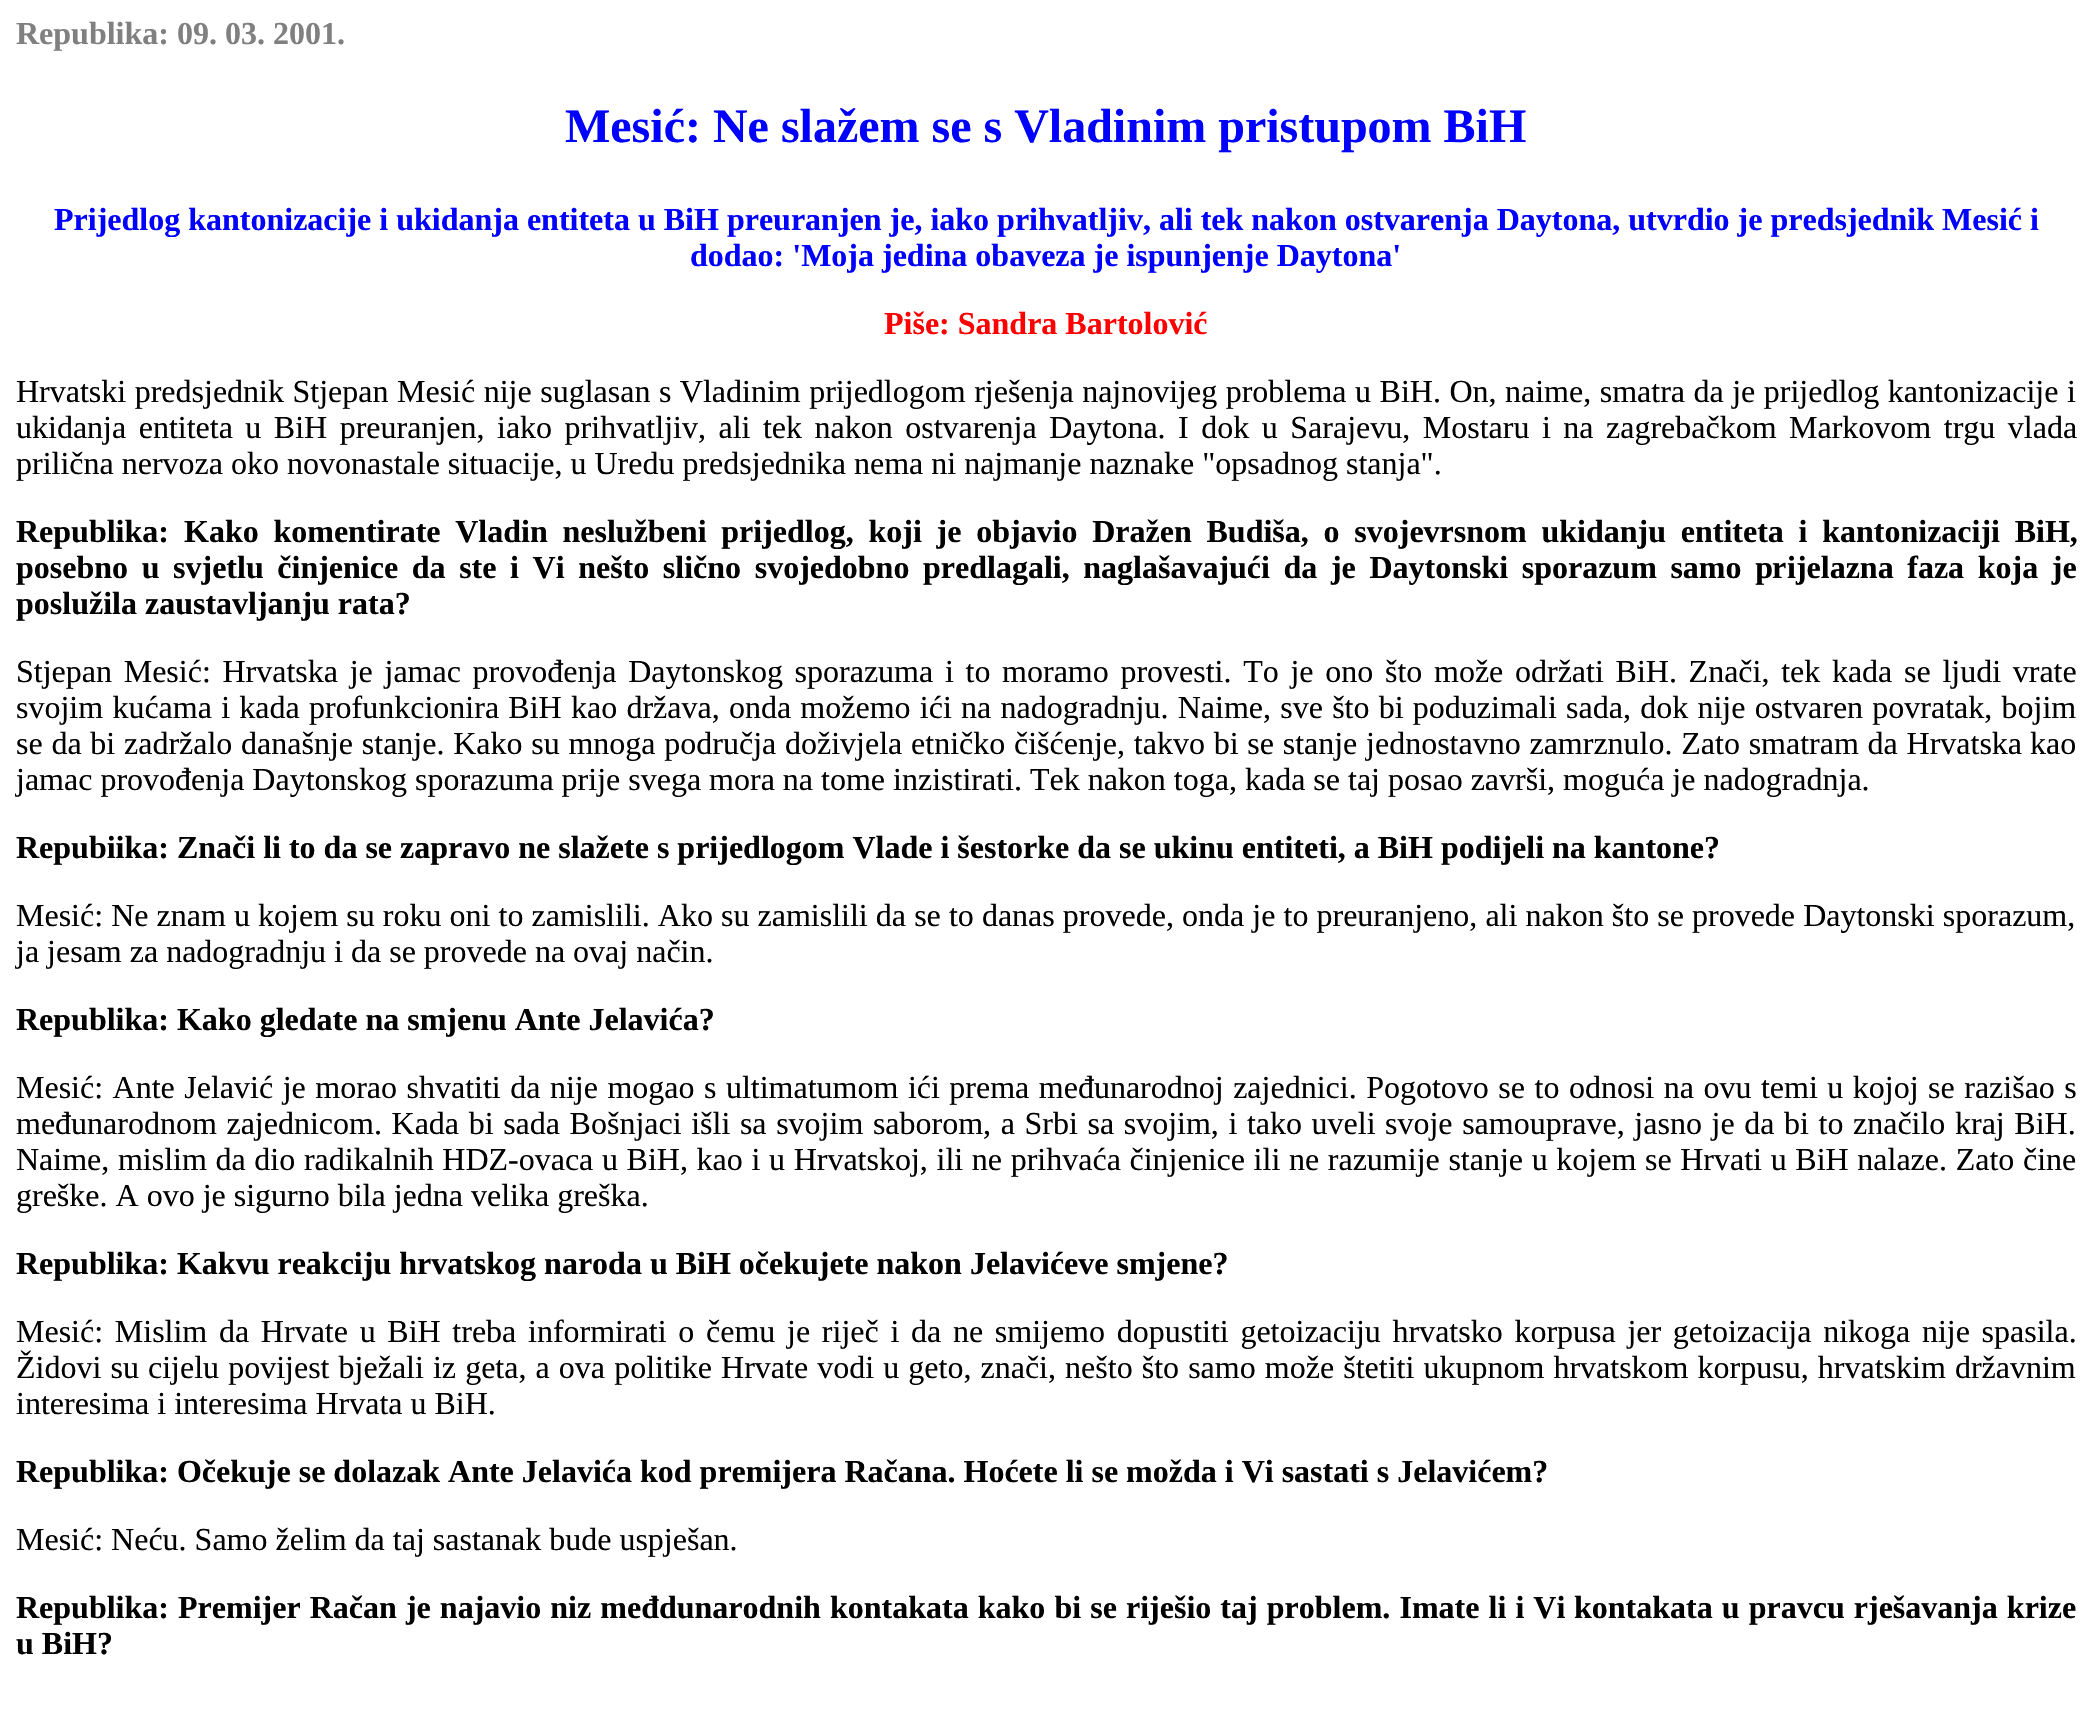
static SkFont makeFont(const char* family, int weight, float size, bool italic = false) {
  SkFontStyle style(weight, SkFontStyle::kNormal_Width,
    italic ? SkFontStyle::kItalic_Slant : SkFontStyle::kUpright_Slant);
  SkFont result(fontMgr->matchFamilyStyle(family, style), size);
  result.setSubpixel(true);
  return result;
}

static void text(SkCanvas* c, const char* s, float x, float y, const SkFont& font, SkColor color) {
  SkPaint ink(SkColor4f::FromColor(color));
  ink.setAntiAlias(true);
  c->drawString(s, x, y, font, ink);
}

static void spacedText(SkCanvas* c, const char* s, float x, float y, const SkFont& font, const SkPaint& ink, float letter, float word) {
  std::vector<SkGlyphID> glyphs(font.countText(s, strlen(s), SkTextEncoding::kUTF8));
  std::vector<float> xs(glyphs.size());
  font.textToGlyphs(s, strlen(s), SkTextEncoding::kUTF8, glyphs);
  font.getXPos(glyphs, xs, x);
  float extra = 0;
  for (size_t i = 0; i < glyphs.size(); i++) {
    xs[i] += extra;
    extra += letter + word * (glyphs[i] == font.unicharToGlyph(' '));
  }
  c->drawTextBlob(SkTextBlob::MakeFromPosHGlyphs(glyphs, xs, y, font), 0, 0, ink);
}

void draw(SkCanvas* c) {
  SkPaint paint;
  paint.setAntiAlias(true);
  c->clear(0xffffffff);
  SkFont face1 = makeFont("Liberation Serif", 700, 32);
  text(c, "Republika: 09. 03. 2001.", 16, 44, face1, 0xff808080);
  SkFont face2 = makeFont("Liberation Serif", 700, 48);
  text(c, "Mesić: Ne slažem se s Vladinim pristupom BiH", 565, 142, face2, 0xff0000ff);
  text(c, "Prijedlog kantonizacije i ukidanja entiteta u BiH preuranjen je, iako prihvatljiv, ali tek nakon ostvarenja Daytona, utvrdio je predsjednik Mesić i", 54, 230, face1, 0xff0000ff);
  text(c, "dodao: 'Moja jedina obaveza je ispunjenje Daytona'", 690, 266, face1, 0xff0000ff);
  text(c, "Piše: Sandra Bartolović", 884, 334, face1, 0xffff0000);
  SkFont face3 = makeFont("Liberation Serif", 400, 32);
  paint.setColor(0xff000000);
  spacedText(c, "Hrvatski predsjednik Stjepan Mesić nije suglasan s Vladinim prijedlogom rješenja najnovijeg problema u BiH. On, naime, smatra da je prijedlog kantonizacije i", 16, 402, face3, paint, 0, 0.5f);
  spacedText(c, "ukidanja entiteta u BiH preuranjen, iako prihvatljiv, ali tek nakon ostvarenja Daytona. I dok u Sarajevu, Mostaru i na zagrebačkom Markovom trgu vlada", 16, 438, face3, paint, 0, 4.5f);
  text(c, "prilična nervoza oko novonastale situacije, u Uredu predsjednika nema ni najmanje naznake \"opsadnog stanja\".", 16, 474, face3, 0xff000000);
  text(c, "Republika:", 16, 542, face1, 0xff000000);
  spacedText(c, "Kako komentirate Vladin neslužbeni prijedlog, koji je objavio Dražen Budiša, o svojevrsnom ukidanju entiteta i kantonizaciji BiH,", 184, 542, face1, paint, 0, 6.75f);
  spacedText(c, "posebno u svjetlu činjenice da ste i Vi nešto slično svojedobno predlagali, naglašavajući da je Daytonski sporazum samo p", 16, 578, face1, paint, 0, 5.6f);
  text(c, "r", 1772, 578, face1, 0xff000000);
  spacedText(c, "ijelazna faza koja je", 1787, 578, face1, paint, 0, 5.6f);
  text(c, "poslužila zaustavljanju rata?", 16, 614, face1, 0xff000000);
  spacedText(c, "Stjepan Mesić: Hrvatska je jamac provođenja Daytonskog sporazuma i to moramo provesti. To je ono što može održati BiH. Znači, tek kada se ljudi vrate", 16, 682, face3, paint, 0, 3.7f);
  spacedText(c, "svojim kućama i kada profunkcionira BiH kao država, onda možemo ići na nadogradnju. Naime, sve što bi poduzimali sada, dok nije ostvaren povratak, bojim", 16, 718, face3, paint, 0, 1.25f);
  spacedText(c, "se da bi zadržalo današnje stanje. Kako su mnoga područja doživjela etničko čišćenje, takvo bi se stanje jednostavno zamrznulo. Zato smatram da Hrvatska", 16, 754, face3, paint, 0, 0.75f);
  text(c, "kao", 2030, 754, face3, 0xff000000);
  text(c, "jamac provođenja Daytonskog sporazuma prije svega mora na tome inzistirati. Tek nakon toga, kada se taj posao završi, moguća je nadogradnja.", 16, 790, face3, 0xff000000);
  text(c, "Repubiika: Znači li to da se zapravo ne slažete s prijedlogom Vlade i šestorke da se ukinu entiteti, a BiH podijeli na kantone?", 16, 858, face1, 0xff000000);
  spacedText(c, "Mesić: Ne znam u kojem su roku oni to zamislili. Ako su zamislili da se to danas provede, onda je to preuranjeno, ali nakon što se provede Daytonski sporazum,", 16, 926, face3, paint, 0, 0.1f);
  text(c, "ja jesam za nadogradnju i da se provede na ovaj način.", 16, 962, face3, 0xff000000);
  text(c, "Republika: Kako gledate na smjenu Ante Jelavića?", 16, 1030, face1, 0xff000000);
  spacedText(c, "Mesić: Ante Jelavić je morao shvatiti da nije mogao s ultimatumom ići prema međunarodnoj zajednici. Pogotovo se to odnosi na ovu temi u kojoj se razišao s", 16, 1098, face3, paint, 0, 1.5f);
  spacedText(c, "međunarodnom zajednicom. Kada bi sada Bošnjaci išli sa svojim saborom, a Srbi sa svojim, i tako uveli", 16, 1134, face3, paint, 0, 1.6f);
  spacedText(c, "svoje samouprave, jasno je da bi to značilo kraj BiH.", 1385, 1134, face3, paint, 0, 1.6f);
  spacedText(c, "Naime, mislim da dio radikalnih HDZ-ovaca u BiH, kao i u Hrvatskoj, ili ne prihvaća činjenice ili ne razumije stanje u kojem se Hrvati u BiH nalaze. Zato čine", 16, 1170, face3, paint, 0, 0.65f);
  text(c, "greške. A ovo je sigurno bila jedna velika greška.", 16, 1206, face3, 0xff000000);
  text(c, "Republika: Kakvu reakciju hrvatskog naroda u BiH očekujete nakon Jelavićeve smjene?", 16, 1274, face1, 0xff000000);
  spacedText(c, "Mesić: Mislim da Hrvate u BiH treba informirati o čemu je riječ i da ne smijemo dopustiti getoizaciju hrvatsko korpusa jer getoizacija nikoga nije spasila.", 16, 1342, face3, paint, 0, 3.7f);
  spacedText(c, "Židovi su cijelu povijest bježali iz geta, a ova politike Hrvate vodi u geto, znači, nešto što samo može štetiti ukupnom hrvatskom korpusu, hrvatskim državnim", 16, 1378, face3, paint, 0, 1.1f);
  text(c, "interesima i interesima Hrvata u BiH.", 16, 1414, face3, 0xff000000);
  text(c, "Republika: Očekuje se dolazak Ante Jelavića kod premijera Račana. Hoćete li se možda i Vi sastati s Jelavićem?", 16, 1482, face1, 0xff000000);
  text(c, "Mesić: Neću. Samo želim da taj sastanak bude uspješan.", 16, 1550, face3, 0xff000000);
  spacedText(c, "Republika: Premijer Račan je najavio niz međdunarodnih kontakata kako bi se riješio taj problem. Imate li i Vi", 16, 1618, face1, paint, 0, 1.1f);
  spacedText(c, "kontakata u pravcu rješavanja krize", 1574, 1618, face1, paint, 0, 1.1f);
  text(c, "u BiH?", 16, 1654, face1, 0xff000000);
}
